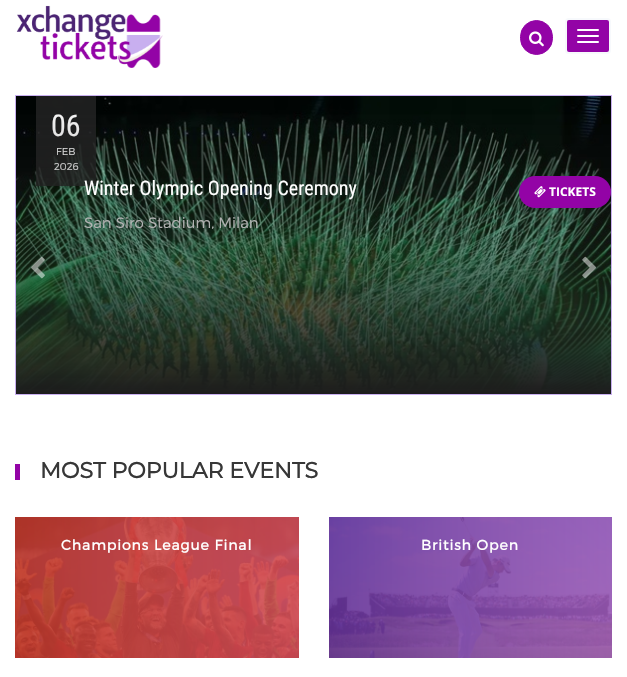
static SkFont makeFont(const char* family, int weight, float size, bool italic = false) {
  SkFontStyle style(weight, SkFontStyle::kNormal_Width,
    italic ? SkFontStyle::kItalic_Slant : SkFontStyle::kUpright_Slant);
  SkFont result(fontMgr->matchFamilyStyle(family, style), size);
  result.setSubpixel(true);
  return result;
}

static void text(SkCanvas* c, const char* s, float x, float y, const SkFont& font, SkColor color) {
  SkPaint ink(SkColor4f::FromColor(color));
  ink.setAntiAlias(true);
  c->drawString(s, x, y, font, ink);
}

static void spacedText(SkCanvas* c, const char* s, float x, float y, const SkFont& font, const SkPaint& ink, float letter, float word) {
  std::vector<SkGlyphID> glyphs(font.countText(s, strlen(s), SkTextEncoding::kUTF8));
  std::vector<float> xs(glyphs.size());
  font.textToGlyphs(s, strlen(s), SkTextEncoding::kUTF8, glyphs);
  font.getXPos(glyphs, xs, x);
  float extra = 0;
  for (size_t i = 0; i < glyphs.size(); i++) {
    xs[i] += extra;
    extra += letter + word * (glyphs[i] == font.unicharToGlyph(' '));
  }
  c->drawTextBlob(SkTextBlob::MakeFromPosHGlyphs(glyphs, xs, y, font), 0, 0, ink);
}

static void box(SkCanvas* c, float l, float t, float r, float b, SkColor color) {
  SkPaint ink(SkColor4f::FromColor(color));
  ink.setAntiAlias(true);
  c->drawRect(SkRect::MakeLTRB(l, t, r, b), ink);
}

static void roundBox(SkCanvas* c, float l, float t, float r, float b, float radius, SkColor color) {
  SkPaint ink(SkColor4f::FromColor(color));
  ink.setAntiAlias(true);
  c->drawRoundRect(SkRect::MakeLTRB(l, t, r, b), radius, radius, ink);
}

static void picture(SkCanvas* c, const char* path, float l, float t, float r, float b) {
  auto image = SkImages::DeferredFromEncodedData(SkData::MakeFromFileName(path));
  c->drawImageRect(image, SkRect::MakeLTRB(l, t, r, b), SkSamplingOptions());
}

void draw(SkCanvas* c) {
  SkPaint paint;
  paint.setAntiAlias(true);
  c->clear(0xffffffff);
  picture(c, "img_01.png", 16, 5, 163, 68);
  paint.setColor(0xff9303a6);
  c->drawRoundRect(SkRect::MakeLTRB(520.5f, 20.5f, 552.5f, 54.5f), 16, 16, paint);
  paint.setStyle(SkPaint::kStroke_Style);
  paint.setStrokeWidth(1);
  c->drawRoundRect(SkRect::MakeLTRB(520.5f, 20.5f, 552.5f, 54.5f), 16, 16, paint);
  picture(c, "img_02.png", 529, 31, 544, 47);
  paint.setStyle(SkPaint::kFill_Style);
  paint.setColor(0xff9304a6);
  c->drawRoundRect(SkRect::MakeLTRB(566, 19, 610, 53), 3, 3, paint);
  paint.setStyle(SkPaint::kStroke_Style);
  paint.setStrokeWidth(2);
  paint.setColor(0xfff7f9fc);
  c->drawRoundRect(SkRect::MakeLTRB(566, 19, 610, 53), 3, 3, paint);
  roundBox(c, 577, 29, 599, 31, 1, 0xffffffff);
  roundBox(c, 577, 35, 599, 37, 1, 0xffffffff);
  roundBox(c, 577, 41, 599, 43, 1, 0xffffffff);
  paint.setStrokeWidth(1);
  paint.setColor(0xffc8afef);
  c->drawRect(SkRect::MakeLTRB(15.5f, 95.5f, 611.5f, 394.5f), paint);
  picture(c, "img_03.png", 16, 96, 611, 392);
  box(c, 36, 96, 96, 186, 0xcc242424);
  SkFont face1 = makeFont("Roboto Condensed", 400, 30);
  text(c, "06", 51, 136, face1, 0xffffffff);
  SkFont face2 = makeFont("Montserrat", 300, 10);
  text(c, "FEB", 56, 155, face2, 0xffffffff);
  text(c, "2026", 54, 170, face2, 0xffffffff);
  paint.setStyle(SkPaint::kFill_Style);
  {
    const SkColor colors[] = {0x00ffffff, 0x001c1c1c, 0xff1c1c1c};
    const float stops[] = {0, 0.01f, 1};
    const SkPoint ends[] = {{314, 96}, {314, 394}};
    paint.setShader(SkGradientShader::MakeLinear(ends, colors, stops, 3, SkTileMode::kClamp));
    paint.setAlpha(255);
  }
  c->drawRect(SkRect::MakeLTRB(16, 114, 611, 394), paint);
  SkFont face3 = makeFont("Roboto Condensed", 400, 20);
  text(c, "Winter Olympic Opening Ceremony", 84, 195, face3, 0xffffffff);
  SkFont face4 = makeFont("Montserrat", 300, 15);
  text(c, "San Siro Stadium, Milan", 84, 228, face4, 0xffb3b3b3);
  roundBox(c, 519, 176, 611, 208, 16, 0xff9303a6);
  picture(c, "img_04.png", 534, 186, 546, 198);
  SkFont face5 = makeFont("Open Sans", 700, 12);
  text(c, "TICKETS", 549, 196, face5, 0xffffffff);
  picture(c, "img_05.png", 31, 256, 45, 279);
  picture(c, "img_06.png", 582, 256, 596, 279);
  box(c, 15, 464, 20, 480, 0xff9303a6);
  SkFont face6 = makeFont("Montserrat", 700, 22);
  text(c, "MOST POPULAR EVENTS", 40, 478, face6, 0xff373737);
  picture(c, "img_07.png", 15, 517, 299, 658);
  SkFont face7 = makeFont("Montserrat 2", 700, 14);
  paint.setShader(nullptr);
  paint.setColor(0xffffffff);
  spacedText(c, "Champions League Final", 61, 550, face7, paint, 1, 0);
  picture(c, "img_08.png", 329, 517, 612, 658);
  spacedText(c, "British Open", 421, 550, face7, paint, 1, 0);
}
